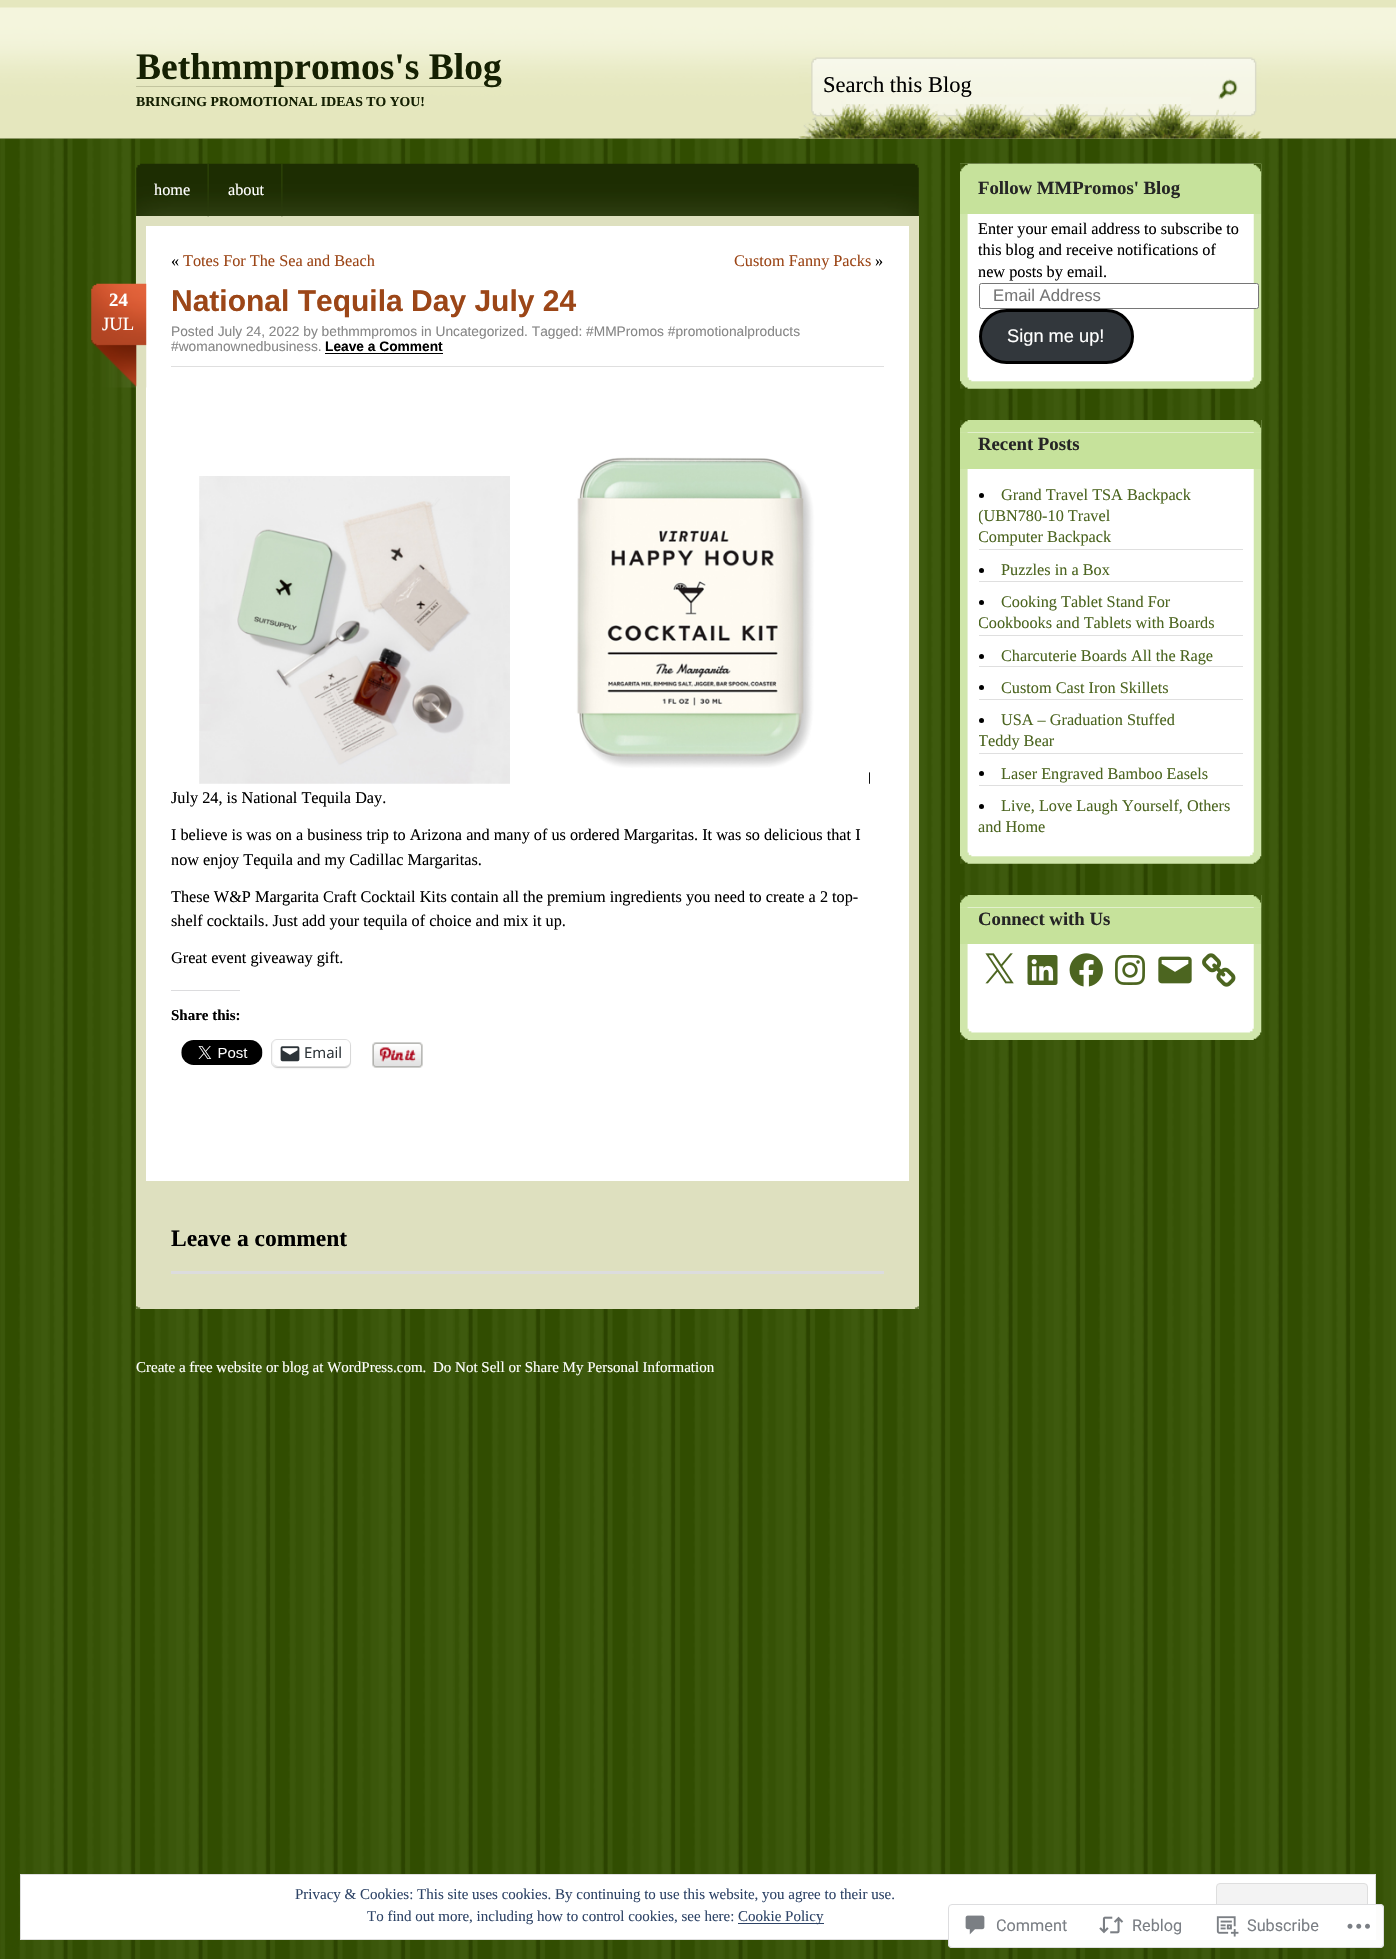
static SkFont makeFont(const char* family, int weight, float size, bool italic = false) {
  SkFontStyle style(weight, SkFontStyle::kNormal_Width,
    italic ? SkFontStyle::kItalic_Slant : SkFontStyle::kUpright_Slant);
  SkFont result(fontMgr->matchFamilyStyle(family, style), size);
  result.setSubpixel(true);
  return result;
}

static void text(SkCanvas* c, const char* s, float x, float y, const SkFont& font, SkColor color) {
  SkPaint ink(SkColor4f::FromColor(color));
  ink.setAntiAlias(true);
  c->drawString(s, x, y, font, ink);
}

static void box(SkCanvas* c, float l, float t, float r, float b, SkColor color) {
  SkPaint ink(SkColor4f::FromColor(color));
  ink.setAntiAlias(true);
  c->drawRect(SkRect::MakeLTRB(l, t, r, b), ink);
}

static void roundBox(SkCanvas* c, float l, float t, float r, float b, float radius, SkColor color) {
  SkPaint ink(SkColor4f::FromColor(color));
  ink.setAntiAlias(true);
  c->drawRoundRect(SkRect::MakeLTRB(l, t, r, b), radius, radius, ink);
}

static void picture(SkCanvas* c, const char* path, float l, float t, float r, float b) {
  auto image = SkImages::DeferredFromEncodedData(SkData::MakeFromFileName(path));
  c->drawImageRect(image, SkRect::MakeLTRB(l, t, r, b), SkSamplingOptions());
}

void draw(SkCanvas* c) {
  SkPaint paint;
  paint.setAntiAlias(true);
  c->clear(0xffffffff);
  picture(c, "img_01.png", 0, 138, 1396, 1959);
  picture(c, "img_02.png", 0, 0, 1396, 139);
  box(c, 136, 86, 501, 87, 0xffc2c49e);
  SkFont face1 = makeFont("Liberation Serif", 700, 37.5f);
  text(c, "Bethmmpromos's Blog", 136, 79, face1, 0xff152002);
  SkFont face2 = makeFont("Liberation Serif", 700, 13.75f);
  text(c, "BRINGING PROMOTIONAL IDEAS TO YOU!", 136, 106, face2, 0xff152002);
  picture(c, "img_03.png", 798, 57, 1262, 139);
  box(c, 846, 97, 1191, 104, 0xfff5f6e7);
  SkFont face3 = makeFont("Liberation Serif", 400, 22.5f);
  text(c, "Search this Blog", 823, 92, face3, 0xff000000);
  picture(c, "img_04.png", 1218, 78, 1238, 100);
  picture(c, "img_05.png", 136, 163, 919, 216);
  box(c, 136, 216, 919, 1309, 0xffdee0bf);
  picture(c, "img_06.png", 207, 164, 209, 217);
  SkFont face4 = makeFont("Liberation Serif", 400, 16.25f);
  text(c, "home", 154, 195, face4, 0xffffffff);
  picture(c, "img_07.png", 281, 164, 283, 217);
  text(c, "about", 228, 195, face4, 0xffffffff);
  picture(c, "img_08.png", 136, 1306, 919, 1309);
  box(c, 146, 226, 909, 1181, 0xffffffff);
  text(c, "«", 171, 266, face4, 0xff000000);
  text(c, "Totes For The Sea and Beach", 183, 266, face4, 0xff9c4617);
  text(c, "Custom Fanny Packs", 734, 266, face4, 0xff9c4617);
  text(c, "»", 875, 266, face4, 0xff000000);
  picture(c, "img_09.png", 91, 283, 147, 388);
  SkFont face5 = makeFont("Liberation Serif", 700, 18.75f);
  text(c, "24", 109, 306, face5, 0xffffffff);
  SkFont face6 = makeFont("Liberation Serif", 400, 18.75f);
  text(c, "JUL", 102, 330, face6, 0xffffffff);
  SkFont face7 = makeFont("Liberation Sans", 700, 30);
  text(c, "National Tequila Day July 24", 171, 311, face7, 0xff9c4617);
  box(c, 171, 366, 884, 367, 0xffdfdfdf);
  SkFont face8 = makeFont("Liberation Sans", 400, 13.75f);
  text(c, "Posted July 24, 2022 by bethmmpromos in Uncategorized. Tagged: #MMPromos #promotionalproducts", 171, 336, face8, 0xff878787);
  text(c, "#womanownedbusiness.", 171, 351, face8, 0xff878787);
  SkFont face9 = makeFont("Liberation Sans", 700, 13.75f);
  text(c, "Leave a Comment", 325, 351, face9, 0xff000000);
  box(c, 325, 353, 443, 354, 0xff000000);
  picture(c, "img_10.png", 199, 457, 870, 784);
  text(c, "July 24, is National Tequila Day.", 171, 803, face4, 0xff000000);
  text(c, "I believe is was on a business trip to Arizona and many of us ordered Margaritas. It was so delicious that I", 171, 840, face4, 0xff000000);
  text(c, "now enjoy Tequila and my Cadillac Margaritas.", 171, 865, face4, 0xff000000);
  text(c, "These W&P Margarita Craft Cocktail Kits contain all the premium ingredients you need to create a 2 top-", 171, 902, face4, 0xff000000);
  text(c, "shelf cocktails. Just add your tequila of choice and mix it up.", 171, 926, face4, 0xff000000);
  text(c, "Great event giveaway gift.", 171, 963, face4, 0xff000000);
  box(c, 171, 990, 240, 991, 0xffdcdcde);
  SkFont face10 = makeFont("Liberation Serif", 700, 15);
  text(c, "Share this:", 171, 1020, face10, 0xff000000);
  picture(c, "img_11.png", 181, 1040, 263, 1065);
  paint.setStyle(SkPaint::kStroke_Style);
  paint.setStrokeWidth(1);
  paint.setColor(0xffe0e0e0);
  c->drawRoundRect(SkRect::MakeLTRB(271.5f, 1039.5f, 350.5f, 1067.5f), 5.5f, 5.5f, paint);
  paint.setStyle(SkPaint::kFill_Style);
  paint.setColor(0x1f000000);
  paint.setMaskFilter(SkMaskFilter::MakeBlur(kNormal_SkBlurStyle, 1));
  c->drawRoundRect(SkRect::MakeLTRB(273, 1041, 350, 1068), 5, 5, paint);
  paint.setMaskFilter(nullptr);
  roundBox(c, 273, 1040, 350, 1066, 5, 0xffffffff);
  picture(c, "img_12.png", 280, 1046, 300, 1062);
  SkFont face11 = makeFont("Open Sans", 400, 15);
  text(c, "Email", 304, 1058, face11, 0xff2c3338);
  picture(c, "img_13.png", 372, 1042, 423, 1068);
  SkFont face12 = makeFont("Liberation Serif", 700, 23.5f);
  text(c, "Leave a comment", 171, 1246, face12, 0xff000000);
  box(c, 171, 1271, 884, 1274, 0xffdcdcde);
  picture(c, "img_14.png", 960, 163, 1262, 389);
  picture(c, "img_15.png", 960, 163, 1262, 176);
  box(c, 960, 176, 1261, 214, 0xffc6e29b);
  text(c, "Follow MMPromos' Blog", 978, 194, face5, 0xff252525);
  text(c, "Enter your email address to subscribe to", 978, 234, face4, 0xff000000);
  text(c, "this blog and receive notifications of", 978, 255, face4, 0xff000000);
  text(c, "new posts by email.", 978, 277, face4, 0xff000000);
  paint.setColor(0xffffffff);
  c->drawRoundRect(SkRect::MakeLTRB(979.5f, 283.5f, 1258.5f, 308.5f), 2, 2, paint);
  paint.setStyle(SkPaint::kStroke_Style);
  paint.setColor(0xff767676);
  c->drawRoundRect(SkRect::MakeLTRB(979.5f, 283.5f, 1258.5f, 308.5f), 2, 2, paint);
  SkFont face13 = makeFont("Liberation Sans", 400, 16.75f);
  text(c, "Email Address", 993, 301, face13, 0xff757575);
  paint.setStyle(SkPaint::kFill_Style);
  paint.setColor(0xff32373c);
  c->drawRoundRect(SkRect::MakeLTRB(980.5f, 310.5f, 1132.5f, 362.5f), 26, 26, paint);
  paint.setStyle(SkPaint::kStroke_Style);
  paint.setStrokeWidth(3);
  paint.setColor(0xff000000);
  c->drawRoundRect(SkRect::MakeLTRB(980.5f, 310.5f, 1132.5f, 362.5f), 26, 26, paint);
  SkFont face14 = makeFont("Liberation Sans", 400, 18.25f);
  text(c, "Sign me up!", 1007, 342, face14, 0xffffffff);
  picture(c, "img_16.png", 960, 420, 1262, 864);
  picture(c, "img_17.png", 960, 420, 1262, 433);
  box(c, 960, 433, 1261, 469, 0xffc6e29b);
  text(c, "Recent Posts", 978, 450, face5, 0xff252525);
  paint.setStyle(SkPaint::kFill_Style);
  c->drawCircle(981.5f, 495.5f, 2.5f, paint);
  text(c, "Grand Travel TSA Backpack", 1001, 500, face4, 0xff4c6520);
  c->save();
  c->clipRect(SkRect::MakeLTRB(979, 475, 1243, 839));
  text(c, "(UBN780-10 Travel", 978, 521, face4, 0xff4c6520);
  text(c, "Computer Backpack", 978, 542, face4, 0xff4c6520);
  c->restore();
  box(c, 979, 549, 1243, 550, 0xffdfdfdf);
  c->drawCircle(981.5f, 570.5f, 2.5f, paint);
  text(c, "Puzzles in a Box", 1001, 575, face4, 0xff4c6520);
  box(c, 979, 581, 1243, 582, 0xffdfdfdf);
  c->drawCircle(981.5f, 602.5f, 2.5f, paint);
  text(c, "Cooking Tablet Stand For", 1001, 607, face4, 0xff4c6520);
  c->save();
  c->clipRect(SkRect::MakeLTRB(979, 475, 1243, 839));
  text(c, "Cookbooks and Tablets with Boards", 978, 628, face4, 0xff4c6520);
  c->restore();
  box(c, 979, 635, 1243, 636, 0xffdfdfdf);
  c->drawCircle(981.5f, 656.5f, 2.5f, paint);
  text(c, "Charcuterie Boards All the Rage", 1001, 661, face4, 0xff4c6520);
  box(c, 979, 666, 1243, 667, 0xffdfdfdf);
  c->drawCircle(981.5f, 687.5f, 2.5f, paint);
  text(c, "Custom Cast Iron Skillets", 1001, 693, face4, 0xff4c6520);
  box(c, 979, 699, 1243, 700, 0xffdfdfdf);
  c->drawCircle(981.5f, 720.5f, 2.5f, paint);
  text(c, "USA – Graduation Stuffed", 1001, 725, face4, 0xff4c6520);
  c->save();
  c->clipRect(SkRect::MakeLTRB(979, 475, 1243, 839));
  text(c, "Teddy Bear", 978, 746, face4, 0xff4c6520);
  c->restore();
  box(c, 979, 753, 1243, 754, 0xffdfdfdf);
  c->drawCircle(981.5f, 773.5f, 2.5f, paint);
  text(c, "Laser Engraved Bamboo Easels", 1001, 779, face4, 0xff4c6520);
  box(c, 979, 785, 1243, 786, 0xffdfdfdf);
  c->drawCircle(981.5f, 806.5f, 2.5f, paint);
  text(c, "Live, Love Laugh Yourself, Others", 1001, 811, face4, 0xff4c6520);
  text(c, "and Home", 978, 832, face4, 0xff4c6520);
  picture(c, "img_18.png", 960, 895, 1262, 1040);
  picture(c, "img_17.png", 960, 895, 1262, 908);
  box(c, 960, 908, 1261, 944, 0xffc6e29b);
  text(c, "Connect with Us", 978, 925, face5, 0xff252525);
  picture(c, "img_19.png", 985, 953, 1014, 984);
  picture(c, "img_20.png", 1027, 955, 1058, 985);
  picture(c, "img_21.png", 1069, 953, 1103, 987);
  picture(c, "img_22.png", 1115, 955, 1145, 985);
  picture(c, "img_23.png", 1158, 956, 1192, 984);
  picture(c, "img_24.png", 1202, 953, 1236, 987);
  SkFont face15 = makeFont("Liberation Serif", 400, 15);
  text(c, "Create a free website or blog at WordPress.com.", 136, 1372, face15, 0xffffffff);
  text(c, "Do Not Sell or Share My Personal Information", 433, 1372, face15, 0xffffffff);
  paint.setColor(0xffffffff);
  c->drawRect(SkRect::MakeLTRB(20.5f, 1874.5f, 1375.5f, 1939.5f), paint);
  paint.setStyle(SkPaint::kStroke_Style);
  paint.setStrokeWidth(1);
  paint.setColor(0xffdedede);
  c->drawRect(SkRect::MakeLTRB(20.5f, 1874.5f, 1375.5f, 1939.5f), paint);
  text(c, "Privacy & Cookies: This site uses cookies. By continuing to use this website, you agree to their use.", 295, 1899, face15, 0xff2e4467);
  paint.setStyle(SkPaint::kFill_Style);
  paint.setColor(0xfff3f3f3);
  c->drawRoundRect(SkRect::MakeLTRB(1216.5f, 1883.5f, 1367.5f, 1930.5f), 3.5f, 3.5f, paint);
  paint.setStyle(SkPaint::kStroke_Style);
  paint.setColor(0xffdedede);
  c->drawRoundRect(SkRect::MakeLTRB(1216.5f, 1883.5f, 1367.5f, 1930.5f), 3.5f, 3.5f, paint);
  text(c, "To find out more, including how to control cookies, see here:", 367, 1921, face15, 0xff2e4467);
  box(c, 738, 1923, 824, 1924, 0xff2e4467);
  text(c, "Cookie Policy", 738, 1921, face15, 0xff2e4467);
  roundBox(c, 948, 1904, 1384, 1948, 4, 0xfaffffff);
  paint.setColor(0xfadcdcde);
  c->drawRoundRect(SkRect::MakeLTRB(948.5f, 1904.5f, 1383.5f, 1947.5f), 3.5f, 3.5f, paint);
  picture(c, "img_25.png", 965, 1915, 985, 1935);
  SkFont face16 = makeFont("Roboto", 400, 16.25f);
  text(c, "Comment", 996, 1931, face16, 0xff7b7f85);
  picture(c, "img_26.png", 1099, 1916, 1124, 1934);
  text(c, "Reblog", 1132, 1931, face16, 0xff7b7f85);
  picture(c, "img_27.png", 1216, 1916, 1239, 1937);
  text(c, "Subscribe", 1247, 1931, face16, 0xff7b7f85);
  picture(c, "img_28.png", 1347, 1923, 1370, 1929);
}
